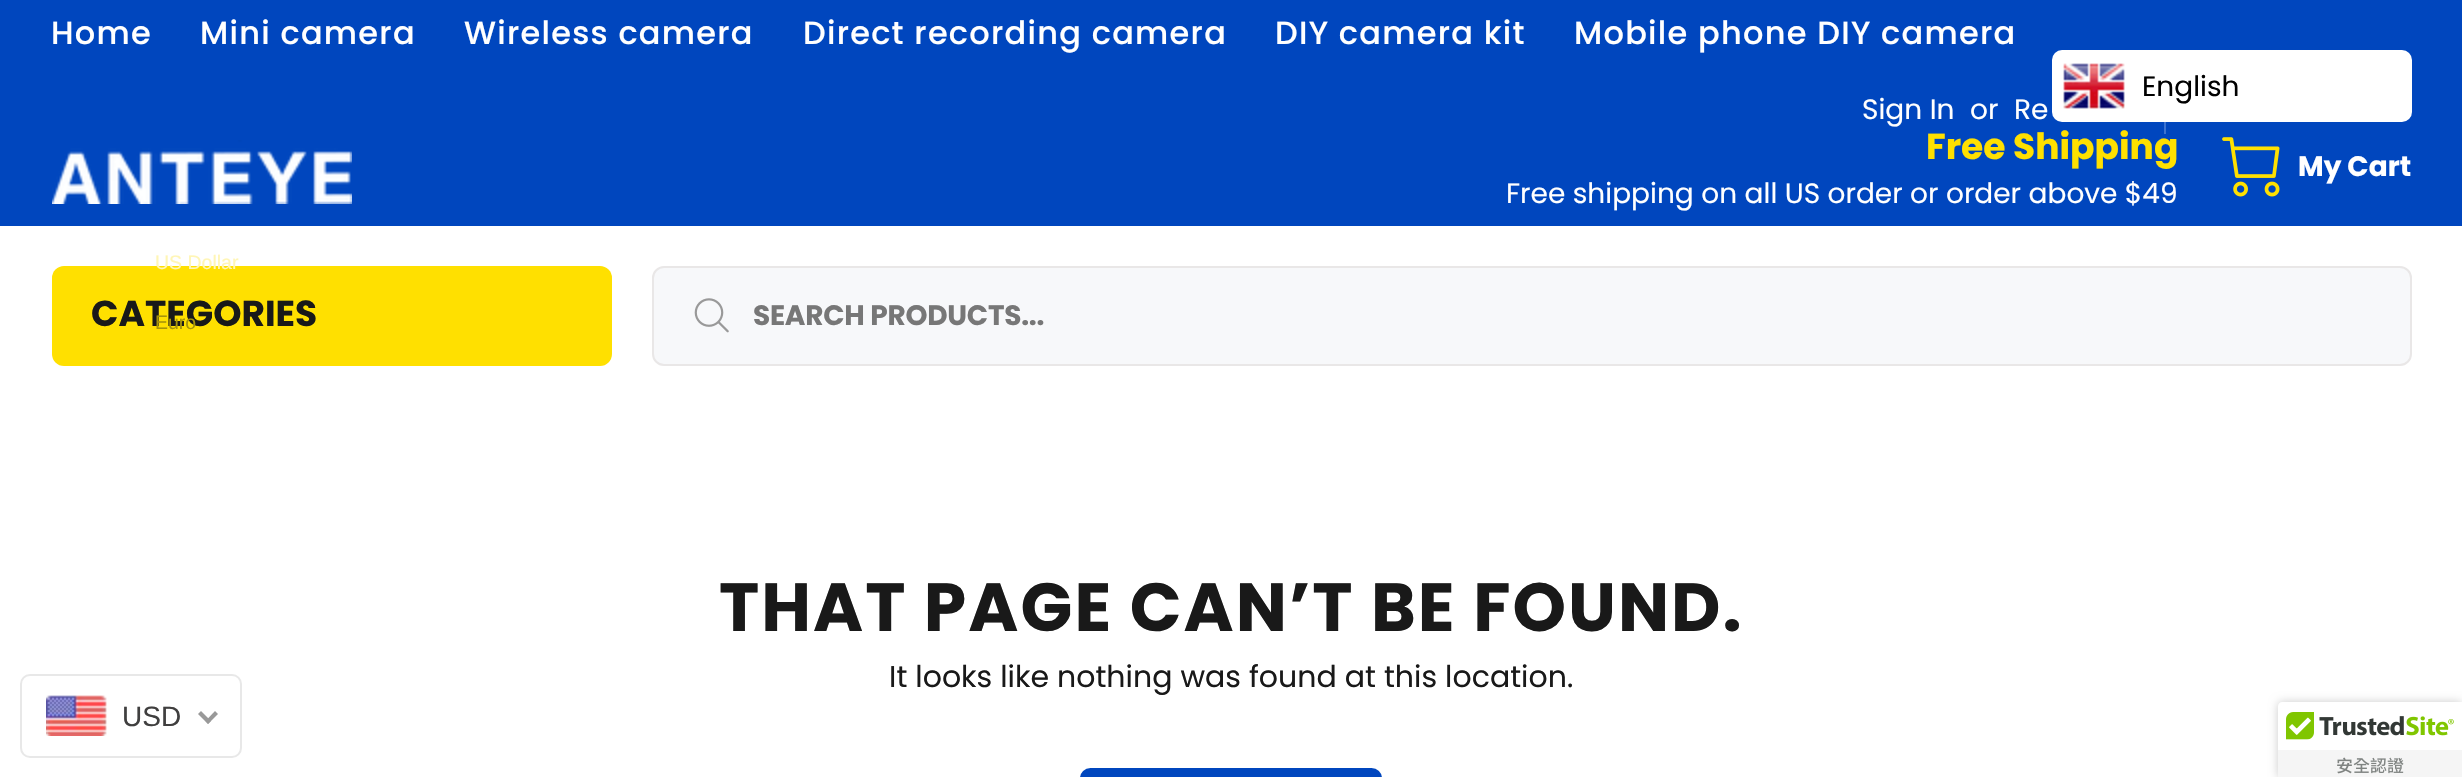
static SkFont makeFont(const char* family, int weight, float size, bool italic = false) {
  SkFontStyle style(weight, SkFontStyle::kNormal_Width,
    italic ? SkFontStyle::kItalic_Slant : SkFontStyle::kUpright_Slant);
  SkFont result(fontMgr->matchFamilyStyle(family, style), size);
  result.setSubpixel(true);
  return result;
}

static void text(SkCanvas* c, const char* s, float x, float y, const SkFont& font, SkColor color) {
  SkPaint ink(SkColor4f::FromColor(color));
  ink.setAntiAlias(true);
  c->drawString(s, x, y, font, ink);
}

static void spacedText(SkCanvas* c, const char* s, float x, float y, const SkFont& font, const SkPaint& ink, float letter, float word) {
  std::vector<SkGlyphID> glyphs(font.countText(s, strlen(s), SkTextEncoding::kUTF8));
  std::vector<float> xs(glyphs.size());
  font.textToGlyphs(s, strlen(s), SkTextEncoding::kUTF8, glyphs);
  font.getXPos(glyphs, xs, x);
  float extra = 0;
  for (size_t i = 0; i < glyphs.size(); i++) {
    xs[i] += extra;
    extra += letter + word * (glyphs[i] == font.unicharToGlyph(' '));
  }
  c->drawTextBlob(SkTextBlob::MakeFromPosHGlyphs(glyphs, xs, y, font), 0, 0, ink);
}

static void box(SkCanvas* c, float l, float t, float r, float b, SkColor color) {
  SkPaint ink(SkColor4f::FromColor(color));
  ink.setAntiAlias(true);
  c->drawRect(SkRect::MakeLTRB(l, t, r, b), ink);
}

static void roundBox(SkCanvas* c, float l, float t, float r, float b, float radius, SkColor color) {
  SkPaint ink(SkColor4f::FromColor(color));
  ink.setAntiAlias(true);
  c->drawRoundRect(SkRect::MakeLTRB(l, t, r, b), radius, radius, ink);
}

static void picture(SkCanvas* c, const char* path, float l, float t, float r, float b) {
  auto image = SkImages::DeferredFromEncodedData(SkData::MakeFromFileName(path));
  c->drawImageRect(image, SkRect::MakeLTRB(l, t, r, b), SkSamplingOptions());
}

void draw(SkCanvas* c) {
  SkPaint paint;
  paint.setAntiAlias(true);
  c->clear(0xffffffff);
  box(c, 0, 0, 2462, 226, 0xff0046be);
  SkFont face1 = makeFont("Poppins", 500, 32);
  paint.setColor(0xffffffff);
  spacedText(c, "Home", 51, 44, face1, paint, 1.25f, 0);
  spacedText(c, "Mini camera", 200, 44, face1, paint, 1.25f, 0);
  spacedText(c, "Wireless camera", 464, 44, face1, paint, 1.25f, 0);
  spacedText(c, "Direct recording camera", 803, 44, face1, paint, 1.25f, 0);
  spacedText(c, "DIY camera kit", 1275, 44, face1, paint, 1.25f, 0);
  spacedText(c, "Mobile phone DIY camera", 1574, 44, face1, paint, 1.25f, 0);
  SkFont face2 = makeFont("Poppins", 400, 28);
  text(c, "Sign In", 1862, 119, face2, 0xffffffff);
  text(c, "or", 1970, 119, face2, 0xffffffff);
  text(c, "Re", 2014, 119, face2, 0xffffffff);
  SkFont face3 = makeFont("Poppins", 700, 36);
  text(c, "Free Shipping", 1926, 159, face3, 0xffffe000);
  box(c, 2164, 122, 2166, 134, 0xff3c72d0);
  picture(c, "img_01.png", 52, 140, 352, 204);
  text(c, "Free shipping on all US order or order above $49", 1506, 203, face2, 0xffffffff);
  picture(c, "img_02.png", 2222, 137, 2280, 197);
  SkFont face4 = makeFont("Poppins", 700, 28);
  text(c, "My Cart", 2298, 176, face4, 0xffffffff);
  roundBox(c, 52, 266, 612, 366, 12, 0xffffe000);
  text(c, "CATEGORIES", 91, 326, face3, 0xff191919);
  paint.setColor(0xfff7f8fa);
  c->drawRoundRect(SkRect::MakeLTRB(653, 267, 2411, 365), 11, 11, paint);
  paint.setStyle(SkPaint::kStroke_Style);
  paint.setStrokeWidth(2);
  paint.setColor(0xffe9e7e7);
  c->drawRoundRect(SkRect::MakeLTRB(653, 267, 2411, 365), 11, 11, paint);
  picture(c, "img_03.png", 694, 298, 729, 333);
  paint.setStyle(SkPaint::kFill_Style);
  paint.setColor(0xff777777);
  spacedText(c, "SEARCH PRODUCTS...", 753, 325, face4, paint, -0.25f, 0);
  roundBox(c, 2052, 50, 2412, 122, 10, 0xffffffff);
  picture(c, "img_04.png", 2063, 63, 2125, 109);
  text(c, "English", 2142, 96, face2, 0xff000000);
  paint.setStyle(SkPaint::kStroke_Style);
  paint.setColor(0xffe8e8e8);
  c->drawRoundRect(SkRect::MakeLTRB(21, 675, 241, 757), 9, 9, paint);
  SkFont face5 = makeFont("Liberation Sans", 400, 19.5f);
  text(c, "US Dollar", 155, 269, face5, 0xfffff6b6);
  text(c, "Euro", 155, 329, face5, 0xffa7940a);
  picture(c, "img_05.png", 46, 695, 107, 736);
  SkFont face6 = makeFont("Liberation Sans", 400, 28);
  text(c, "USD", 122, 726, face6, 0xff403f3f);
  paint.setStyle(SkPaint::kFill_Style);
  paint.setColor(0xff999999);
  c->drawPath(SkPathBuilder().moveTo(215, 711).lineTo(218, 714).lineTo(208, 724).lineTo(205.5f, 721).close().detach(), paint);
  c->drawPath(SkPathBuilder().moveTo(201, 711).lineTo(211, 721).lineTo(208, 724).lineTo(198, 714).close().detach(), paint);
  SkFont face7 = makeFont("Poppins", 700, 68);
  paint.setColor(0xff191919);
  spacedText(c, "THAT PAGE CAN’T BE FOUND.", 719, 631, face7, paint, 2.05f, 0);
  SkFont face8 = makeFont("Poppins", 400, 30);
  text(c, "It looks like nothing was found at this location.", 889, 687, face8, 0xff191919);
  roundBox(c, 1080, 768, 1382, 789, 12, 0xff0046be);
  paint.setColor(0x33000000);
  paint.setMaskFilter(SkMaskFilter::MakeBlur(kNormal_SkBlurStyle, 5));
  c->drawRoundRect(SkRect::MakeLTRB(2278, 702, 2462, 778), 4, 4, paint);
  paint.setMaskFilter(nullptr);
  paint.setColor(0xffffffff);
  c->drawPath(SkPathBuilder().moveTo(2282, 702).lineTo(2462, 702).lineTo(2462, 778).lineTo(2278, 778).lineTo(2278, 706).cubicTo(2278, 704, 2280, 702, 2282, 702).close().detach(), paint);
  picture(c, "img_06.png", 2278, 712, 2462, 777);
}
